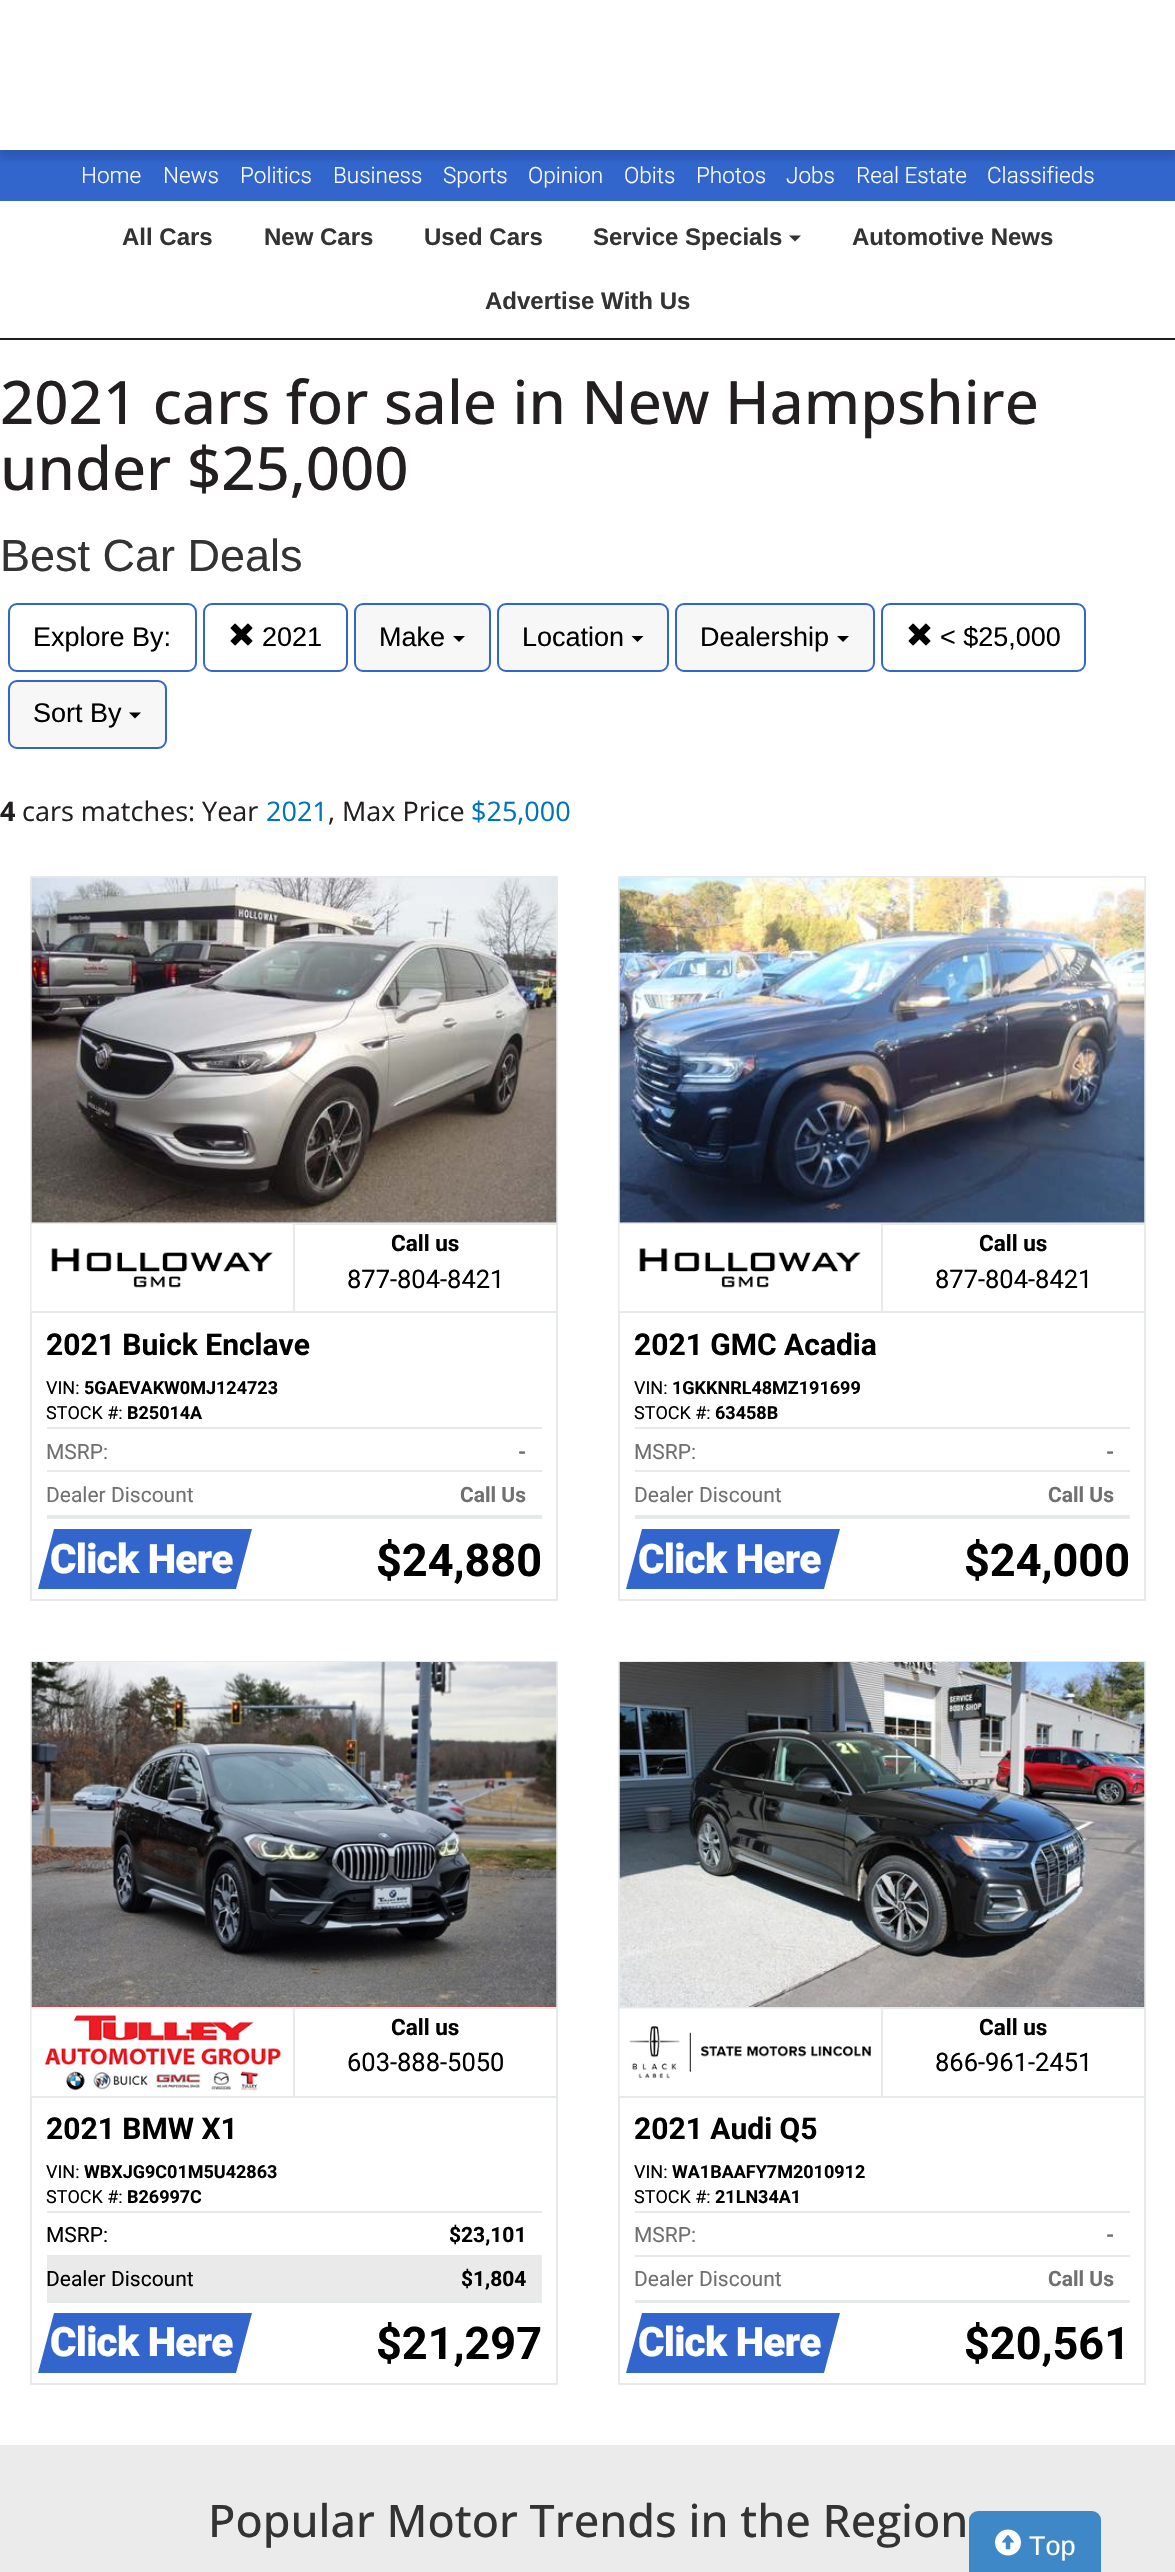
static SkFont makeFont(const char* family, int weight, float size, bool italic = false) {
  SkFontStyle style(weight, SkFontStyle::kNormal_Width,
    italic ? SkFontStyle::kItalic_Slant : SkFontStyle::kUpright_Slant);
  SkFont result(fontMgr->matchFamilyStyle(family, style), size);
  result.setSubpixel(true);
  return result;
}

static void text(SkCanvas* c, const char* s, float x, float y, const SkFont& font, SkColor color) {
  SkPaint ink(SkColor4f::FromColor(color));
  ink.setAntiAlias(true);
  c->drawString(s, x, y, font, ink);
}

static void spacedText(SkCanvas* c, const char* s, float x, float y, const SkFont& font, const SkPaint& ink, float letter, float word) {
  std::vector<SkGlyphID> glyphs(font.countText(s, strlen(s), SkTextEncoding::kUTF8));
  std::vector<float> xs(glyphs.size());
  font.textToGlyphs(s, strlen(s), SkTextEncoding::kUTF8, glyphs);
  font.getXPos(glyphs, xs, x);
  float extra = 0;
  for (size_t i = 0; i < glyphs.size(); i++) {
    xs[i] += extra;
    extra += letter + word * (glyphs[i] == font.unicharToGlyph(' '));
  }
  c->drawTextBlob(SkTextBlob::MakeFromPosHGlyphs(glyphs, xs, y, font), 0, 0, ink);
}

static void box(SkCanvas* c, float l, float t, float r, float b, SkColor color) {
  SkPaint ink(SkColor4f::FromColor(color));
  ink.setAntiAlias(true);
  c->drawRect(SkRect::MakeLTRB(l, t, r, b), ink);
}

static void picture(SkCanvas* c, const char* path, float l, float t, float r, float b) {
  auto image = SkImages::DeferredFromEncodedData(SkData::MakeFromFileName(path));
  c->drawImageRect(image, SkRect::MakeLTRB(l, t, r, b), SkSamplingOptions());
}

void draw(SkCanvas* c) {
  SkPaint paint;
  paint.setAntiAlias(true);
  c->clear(0xffffffff);
  box(c, 0, 150, 1175, 201, 0xff3266cc);
  c->save();
  c->clipRect(SkRect::MakeLTRB(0, 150, 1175, 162));
  paint.setColor(0x24000000);
  paint.setMaskFilter(SkMaskFilter::MakeBlur(kNormal_SkBlurStyle, 4));
  c->drawRect(SkRect::MakeLTRB(0, 8, 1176, 158), paint);
  paint.setMaskFilter(nullptr);
  c->restore();
  SkFont face1 = makeFont("Roboto", 300, 22.5f);
  text(c, "Home", 81, 183, face1, 0xffffffff);
  text(c, "News", 163, 183, face1, 0xffffffff);
  text(c, "Politics", 240, 183, face1, 0xffffffff);
  text(c, "Business", 333, 183, face1, 0xffffffff);
  text(c, "Sports", 443, 183, face1, 0xffffffff);
  text(c, "Opinion", 528, 183, face1, 0xffffffff);
  text(c, "Obits", 624, 183, face1, 0xffffffff);
  text(c, "Photos", 696, 183, face1, 0xffffffff);
  text(c, "Jobs", 786, 183, face1, 0xffffffff);
  text(c, "Real Estate", 856, 183, face1, 0xffffffff);
  text(c, "Classifieds", 987, 183, face1, 0xffffffff);
  box(c, 0, 338, 1175, 340, 0xff1e1e1e);
  SkFont face2 = makeFont("Liberation Sans", 700, 24);
  text(c, "All Cars", 122, 245, face2, 0xff333333);
  text(c, "New Cars", 264, 245, face2, 0xff333333);
  text(c, "Used Cars", 424, 245, face2, 0xff333333);
  text(c, "Service Specials", 593, 245, face2, 0xff333333);
  paint.setColor(0xff333333);
  c->drawPath(SkPathBuilder().moveTo(789, 235.5f).lineTo(801, 235.5f).lineTo(795, 241.5f).close().detach(), paint);
  text(c, "Automotive News", 852, 245, face2, 0xff333333);
  text(c, "Advertise With Us", 485, 309, face2, 0xff333333);
  SkFont face3 = makeFont("Open Sans", 500, 60);
  text(c, "2021 cars for sale in New Hampshire", 0, 424, face3, 0xff231f20);
  text(c, "under $25,000", 0, 490, face3, 0xff231f20);
  SkFont face4 = makeFont("Liberation Sans", 400, 45);
  text(c, "Best Car Deals", 0, 571, face4, 0xff333333);
  paint.setStyle(SkPaint::kStroke_Style);
  paint.setStrokeWidth(2);
  paint.setColor(0xff3266cc);
  c->drawRoundRect(SkRect::MakeLTRB(9, 604, 196, 671), 8, 8, paint);
  SkFont face5 = makeFont("Liberation Sans", 400, 27);
  text(c, "Explore By:", 33, 646, face5, 0xff000000);
  c->drawRoundRect(SkRect::MakeLTRB(204, 604, 347, 671), 8, 8, paint);
  picture(c, "img_01.png", 230, 623, 253, 646);
  text(c, "2021", 262, 646, face5, 0xff000000);
  paint.setStyle(SkPaint::kFill_Style);
  paint.setColor(0xfff7f7f7);
  c->drawRoundRect(SkRect::MakeLTRB(355, 604, 490, 671), 8, 8, paint);
  paint.setStyle(SkPaint::kStroke_Style);
  paint.setColor(0xff3266cc);
  c->drawRoundRect(SkRect::MakeLTRB(355, 604, 490, 671), 8, 8, paint);
  text(c, "Make", 379, 646, face5, 0xff000000);
  paint.setStyle(SkPaint::kFill_Style);
  paint.setColor(0xff000000);
  c->drawPath(SkPathBuilder().moveTo(453, 636).lineTo(465, 636).lineTo(459, 642).close().detach(), paint);
  paint.setColor(0xfff7f7f7);
  c->drawRoundRect(SkRect::MakeLTRB(498, 604, 668, 671), 8, 8, paint);
  paint.setStyle(SkPaint::kStroke_Style);
  paint.setColor(0xff3266cc);
  c->drawRoundRect(SkRect::MakeLTRB(498, 604, 668, 671), 8, 8, paint);
  text(c, "Location", 522, 646, face5, 0xff000000);
  paint.setStyle(SkPaint::kFill_Style);
  paint.setColor(0xff000000);
  c->drawPath(SkPathBuilder().moveTo(631.5f, 636).lineTo(643.5f, 636).lineTo(637.5f, 642).close().detach(), paint);
  paint.setColor(0xfff7f7f7);
  c->drawRoundRect(SkRect::MakeLTRB(676, 604, 874, 671), 8, 8, paint);
  paint.setStyle(SkPaint::kStroke_Style);
  paint.setColor(0xff3266cc);
  c->drawRoundRect(SkRect::MakeLTRB(676, 604, 874, 671), 8, 8, paint);
  text(c, "Dealership", 700, 646, face5, 0xff000000);
  paint.setStyle(SkPaint::kFill_Style);
  paint.setColor(0xff000000);
  c->drawPath(SkPathBuilder().moveTo(837, 636).lineTo(849, 636).lineTo(843, 642).close().detach(), paint);
  paint.setStyle(SkPaint::kStroke_Style);
  paint.setColor(0xff3266cc);
  c->drawRoundRect(SkRect::MakeLTRB(882, 604, 1085, 671), 8, 8, paint);
  picture(c, "img_01.png", 908, 623, 931, 646);
  text(c, "< $25,000", 940, 646, face5, 0xff000000);
  paint.setStyle(SkPaint::kFill_Style);
  paint.setColor(0xfff7f7f7);
  c->drawRoundRect(SkRect::MakeLTRB(9, 681, 166, 748), 8, 8, paint);
  paint.setStyle(SkPaint::kStroke_Style);
  paint.setColor(0xff3266cc);
  c->drawRoundRect(SkRect::MakeLTRB(9, 681, 166, 748), 8, 8, paint);
  text(c, "Sort By", 33, 722, face5, 0xff000000);
  paint.setStyle(SkPaint::kFill_Style);
  paint.setColor(0xff000000);
  c->drawPath(SkPathBuilder().moveTo(129, 712.5f).lineTo(141, 712.5f).lineTo(135, 718.5f).close().detach(), paint);
  SkFont face6 = makeFont("Open Sans", 700, 27);
  text(c, "4", 0, 821, face6, 0xff231f20);
  SkFont face7 = makeFont("Open Sans", 400, 27);
  text(c, "cars matches: Year", 22, 821, face7, 0xff231f20);
  text(c, "2021", 266, 821, face7, 0xff0073bd);
  text(c, ", Max Price", 328, 821, face7, 0xff231f20);
  text(c, "$25,000", 471, 821, face7, 0xff0073bd);
  paint.setStyle(SkPaint::kStroke_Style);
  paint.setColor(0xffe6eaea);
  c->drawRect(SkRect::MakeLTRB(31, 877, 557, 1600), paint);
  picture(c, "img_02.png", 31, 877, 557, 1223);
  box(c, 32, 1223, 294, 1225, 0xffe6eaea);
  box(c, 293, 1223, 295, 1313, 0xffe6eaea);
  box(c, 32, 1311, 557, 1313, 0xffe6eaea);
  picture(c, "img_03.png", 31, 1224, 293, 1311);
  box(c, 294, 1223, 557, 1225, 0xffe6eaea);
  SkFont face8 = makeFont("Roboto", 700, 22.5f);
  text(c, "Call us", 391, 1251, face8, 0xff000000);
  SkFont face9 = makeFont("Roboto", 400, 25.5f);
  text(c, "877-804-8421", 347, 1288, face9, 0xff000000);
  SkFont face10 = makeFont("Roboto", 700, 30);
  text(c, "2021 Buick Enclave", 46, 1355, face10, 0xff000000);
  SkFont face11 = makeFont("Roboto", 400, 18);
  text(c, "VIN:", 46, 1394, face11, 0xff000000);
  SkFont face12 = makeFont("Roboto", 700, 18);
  text(c, "5GAEVAKW0MJ124723", 84, 1394, face12, 0xff000000);
  text(c, "STOCK #:", 46, 1419, face11, 0xff000000);
  text(c, "B25014A", 127, 1419, face12, 0xff000000);
  box(c, 47, 1427, 542, 1429, 0xffe6eaea);
  box(c, 47, 1470, 542, 1472, 0xffe6eaea);
  SkFont face13 = makeFont("Roboto", 400, 21);
  text(c, "MSRP:", 46, 1459, face13, 0xff707070);
  SkFont face14 = makeFont("Roboto", 700, 21);
  text(c, "-", 518, 1459, face14, 0xff707070);
  box(c, 47, 1515, 542, 1519, 0xffe6eaea);
  text(c, "Dealer Discount", 46, 1502, face13, 0xff707070);
  text(c, "Call Us", 460, 1502, face14, 0xff707070);
  paint.setStyle(SkPaint::kFill_Style);
  paint.setColor(0xff3266cc);
  c->drawPath(SkPathBuilder().moveTo(54, 1529).lineTo(252, 1529).lineTo(236, 1589).lineTo(38, 1589).close().detach(), paint);
  SkFont face15 = makeFont("Roboto", 900, 40.5f);
  paint.setColor(0xffffffff);
  spacedText(c, "Click Here", 50, 1573, face15, paint, -0.75f, 0);
  SkFont face16 = makeFont("Roboto", 700, 45);
  text(c, "$24,880", 376, 1576, face16, 0xff000000);
  paint.setStyle(SkPaint::kStroke_Style);
  paint.setColor(0xffe6eaea);
  c->drawRect(SkRect::MakeLTRB(619, 877, 1145, 1600), paint);
  picture(c, "img_04.png", 619, 877, 1145, 1223);
  box(c, 620, 1223, 882, 1225, 0xffe6eaea);
  box(c, 881, 1223, 883, 1313, 0xffe6eaea);
  box(c, 620, 1311, 1145, 1313, 0xffe6eaea);
  picture(c, "img_03.png", 619, 1224, 881, 1311);
  box(c, 882, 1223, 1145, 1225, 0xffe6eaea);
  text(c, "Call us", 979, 1251, face8, 0xff000000);
  text(c, "877-804-8421", 935, 1288, face9, 0xff000000);
  text(c, "2021 GMC Acadia", 634, 1355, face10, 0xff000000);
  text(c, "VIN:", 634, 1394, face11, 0xff000000);
  text(c, "1GKKNRL48MZ191699", 672, 1394, face12, 0xff000000);
  text(c, "STOCK #:", 634, 1419, face11, 0xff000000);
  text(c, "63458B", 715, 1419, face12, 0xff000000);
  box(c, 635, 1427, 1130, 1429, 0xffe6eaea);
  box(c, 635, 1470, 1130, 1472, 0xffe6eaea);
  text(c, "MSRP:", 634, 1459, face13, 0xff707070);
  text(c, "-", 1106, 1459, face14, 0xff707070);
  box(c, 635, 1515, 1130, 1519, 0xffe6eaea);
  text(c, "Dealer Discount", 634, 1502, face13, 0xff707070);
  text(c, "Call Us", 1048, 1502, face14, 0xff707070);
  paint.setStyle(SkPaint::kFill_Style);
  paint.setColor(0xff3266cc);
  c->drawPath(SkPathBuilder().moveTo(642, 1529).lineTo(840, 1529).lineTo(824, 1589).lineTo(626, 1589).close().detach(), paint);
  paint.setColor(0xffffffff);
  spacedText(c, "Click Here", 638, 1573, face15, paint, -0.75f, 0);
  text(c, "$24,000", 964, 1576, face16, 0xff000000);
  paint.setStyle(SkPaint::kStroke_Style);
  paint.setColor(0xffe6eaea);
  c->drawRect(SkRect::MakeLTRB(31, 1662, 557, 2384), paint);
  picture(c, "img_05.png", 31, 1662, 557, 2007);
  box(c, 32, 2007, 294, 2009, 0xffe6eaea);
  box(c, 293, 2007, 295, 2097, 0xffe6eaea);
  box(c, 32, 2096, 557, 2098, 0xffe6eaea);
  picture(c, "img_06.png", 31, 2008, 293, 2096);
  box(c, 294, 2007, 557, 2009, 0xffe6eaea);
  text(c, "Call us", 391, 2035, face8, 0xff000000);
  text(c, "603-888-5050", 347, 2071, face9, 0xff000000);
  text(c, "2021 BMW X1", 46, 2139, face10, 0xff000000);
  text(c, "VIN:", 46, 2178, face11, 0xff000000);
  text(c, "WBXJG9C01M5U42863", 84, 2178, face12, 0xff000000);
  text(c, "STOCK #:", 46, 2203, face11, 0xff000000);
  text(c, "B26997C", 127, 2203, face12, 0xff000000);
  box(c, 47, 2211, 542, 2213, 0xffe6eaea);
  box(c, 47, 2255, 542, 2256, 0xffe6eaea);
  text(c, "MSRP:", 46, 2242, face13, 0xff000000);
  text(c, "$23,101", 449, 2242, face14, 0xff000000);
  box(c, 47, 2256, 542, 2300, 0xffeaeaea);
  box(c, 47, 2300, 542, 2303, 0xffe6eaea);
  text(c, "Dealer Discount", 46, 2286, face13, 0xff000000);
  text(c, "$1,804", 461, 2286, face14, 0xff000000);
  paint.setStyle(SkPaint::kFill_Style);
  paint.setColor(0xff3266cc);
  c->drawPath(SkPathBuilder().moveTo(54, 2313).lineTo(252, 2313).lineTo(236, 2373).lineTo(38, 2373).close().detach(), paint);
  paint.setColor(0xffffffff);
  spacedText(c, "Click Here", 50, 2356, face15, paint, -0.75f, 0);
  text(c, "$21,297", 376, 2359, face16, 0xff000000);
  paint.setStyle(SkPaint::kStroke_Style);
  paint.setColor(0xffe6eaea);
  c->drawRect(SkRect::MakeLTRB(619, 1662, 1145, 2384), paint);
  picture(c, "img_07.png", 619, 1662, 1145, 2007);
  box(c, 620, 2007, 882, 2009, 0xffe6eaea);
  box(c, 881, 2007, 883, 2097, 0xffe6eaea);
  box(c, 620, 2096, 1145, 2098, 0xffe6eaea);
  picture(c, "img_08.png", 619, 2008, 881, 2096);
  box(c, 882, 2007, 1145, 2009, 0xffe6eaea);
  text(c, "Call us", 979, 2035, face8, 0xff000000);
  text(c, "866-961-2451", 935, 2071, face9, 0xff000000);
  text(c, "2021 Audi Q5", 634, 2139, face10, 0xff000000);
  text(c, "VIN:", 634, 2178, face11, 0xff000000);
  text(c, "WA1BAAFY7M2010912", 672, 2178, face12, 0xff000000);
  text(c, "STOCK #:", 634, 2203, face11, 0xff000000);
  text(c, "21LN34A1", 715, 2203, face12, 0xff000000);
  box(c, 635, 2211, 1130, 2213, 0xffe6eaea);
  box(c, 635, 2255, 1130, 2257, 0xffe6eaea);
  text(c, "MSRP:", 634, 2242, face13, 0xff707070);
  text(c, "-", 1106, 2242, face14, 0xff707070);
  box(c, 635, 2300, 1130, 2303, 0xffe6eaea);
  text(c, "Dealer Discount", 634, 2286, face13, 0xff707070);
  text(c, "Call Us", 1048, 2286, face14, 0xff707070);
  paint.setStyle(SkPaint::kFill_Style);
  paint.setColor(0xff3266cc);
  c->drawPath(SkPathBuilder().moveTo(642, 2313).lineTo(840, 2313).lineTo(824, 2373).lineTo(626, 2373).close().detach(), paint);
  paint.setColor(0xffffffff);
  spacedText(c, "Click Here", 638, 2356, face15, paint, -0.75f, 0);
  text(c, "$20,561", 964, 2359, face16, 0xff000000);
  box(c, 0, 2445, 1175, 2572, 0xffebebeb);
  paint.setColor(0xff3f88c7);
  c->drawRoundRect(SkRect::MakeLTRB(970, 2512, 1100, 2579), 8, 8, paint);
  paint.setStyle(SkPaint::kStroke_Style);
  c->drawRoundRect(SkRect::MakeLTRB(970, 2512, 1100, 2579), 8, 8, paint);
  picture(c, "img_09.png", 995, 2529, 1021, 2556);
  text(c, "Top", 1029, 2555, face5, 0xffffffff);
  SkFont face17 = makeFont("Open Sans", 500, 45);
  text(c, "Popular Motor Trends in the Region", 208, 2537, face17, 0xff333333);
}
